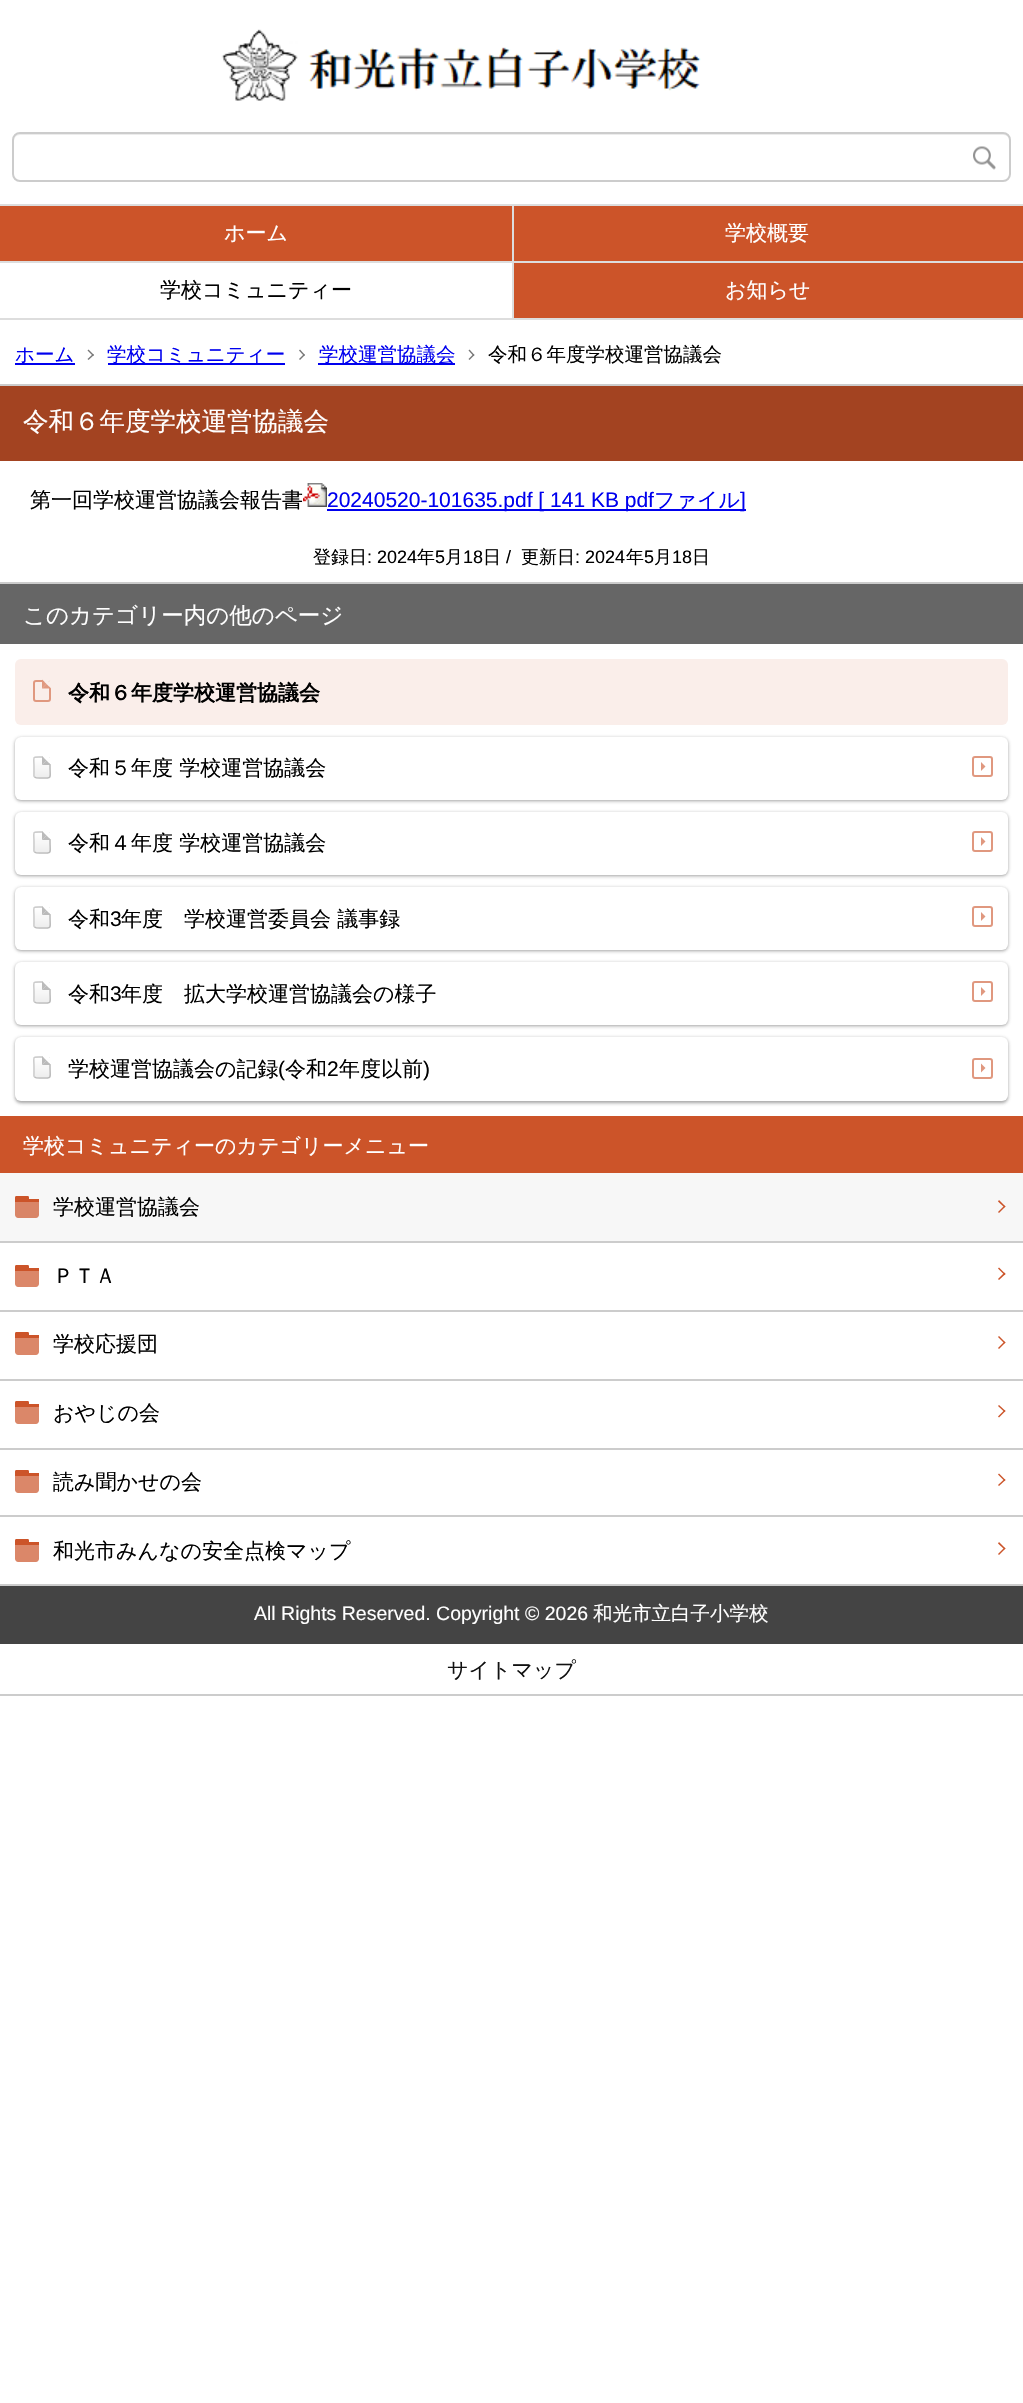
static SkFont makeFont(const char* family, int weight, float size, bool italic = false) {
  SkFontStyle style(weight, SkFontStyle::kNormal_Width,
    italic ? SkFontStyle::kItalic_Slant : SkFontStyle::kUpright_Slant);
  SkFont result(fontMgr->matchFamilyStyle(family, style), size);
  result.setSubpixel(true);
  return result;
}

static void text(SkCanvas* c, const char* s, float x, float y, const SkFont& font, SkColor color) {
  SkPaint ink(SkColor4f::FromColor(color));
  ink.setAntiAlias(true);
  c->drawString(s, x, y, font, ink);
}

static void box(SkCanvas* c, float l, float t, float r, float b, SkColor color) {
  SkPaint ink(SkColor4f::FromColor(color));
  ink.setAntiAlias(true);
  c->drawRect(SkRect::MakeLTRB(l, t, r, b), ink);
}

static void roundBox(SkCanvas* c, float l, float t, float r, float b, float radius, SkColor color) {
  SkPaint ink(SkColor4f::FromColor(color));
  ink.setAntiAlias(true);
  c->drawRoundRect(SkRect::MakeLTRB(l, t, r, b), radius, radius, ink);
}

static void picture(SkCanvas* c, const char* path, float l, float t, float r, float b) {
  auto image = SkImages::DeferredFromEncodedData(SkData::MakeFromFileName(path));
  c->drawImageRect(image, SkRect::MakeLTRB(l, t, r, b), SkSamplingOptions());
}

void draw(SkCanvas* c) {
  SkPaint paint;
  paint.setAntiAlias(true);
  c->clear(0xffffffff);
  picture(c, "img_01.png", 221, 29, 701, 101);
  paint.setColor(0xffececec);
  c->drawPath(SkPathBuilder().moveTo(20, 135).lineTo(1004, 135).cubicTo(1007, 135, 1010, 138, 1010, 141).lineTo(1010, 140).cubicTo(1010, 137, 1007, 134, 1004, 134).lineTo(20, 134).cubicTo(17, 134, 14, 137, 14, 140).lineTo(14, 141).cubicTo(14, 138, 16, 135, 20, 135).close().detach(), paint);
  paint.setStyle(SkPaint::kStroke_Style);
  paint.setStrokeWidth(2);
  paint.setColor(0xffcccccc);
  c->drawRoundRect(SkRect::MakeLTRB(13, 133, 1010, 181), 7, 7, paint);
  picture(c, "img_02.png", 973, 146, 996, 170);
  box(c, 0, 204, 1023, 206, 0xffdddddd);
  box(c, 0, 206, 512, 261, 0xffcc5429);
  box(c, 0, 261, 1023, 263, 0xffdddddd);
  SkFont face1 = makeFont("WenQuanYi Zen Hei", 500, 21);
  text(c, "ホーム", 224, 240, face1, 0xffffffff);
  box(c, 0, 318, 1023, 320, 0xffdddddd);
  box(c, 512, 206, 514, 320, 0xffdddddd);
  box(c, 514, 206, 1023, 261, 0xffcc5429);
  text(c, "学校概要", 725, 240, face1, 0xffffffff);
  text(c, "学校コミュニティー", 160, 297, face1, 0xff000000);
  box(c, 514, 263, 1023, 318, 0xffcc5429);
  text(c, "お知らせ", 725, 297, face1, 0xffffffff);
  box(c, 0, 384, 1023, 386, 0xffcccccc);
  SkFont face2 = makeFont("WenQuanYi Zen Hei", 500, 19.5f);
  text(c, "ホーム", 15, 361, face2, 0xff0000ee);
  box(c, 15, 363, 75, 365, 0xff0000ee);
  paint.setStyle(SkPaint::kFill_Style);
  paint.setColor(0xff777777);
  c->drawPath(SkPathBuilder().moveTo(88.5f, 349.5f).lineTo(94, 355).lineTo(93, 356).lineTo(87.5f, 350.5f).close().detach(), paint);
  c->drawPath(SkPathBuilder().moveTo(93, 354).lineTo(94, 355).lineTo(88.5f, 360).lineTo(87.5f, 359).close().detach(), paint);
  box(c, 108, 363, 285, 365, 0xff0000ee);
  text(c, "学校コミュニティー", 107, 361, face2, 0xff0000ee);
  c->drawPath(SkPathBuilder().moveTo(300, 349.5f).lineTo(305, 355).lineTo(304, 356).lineTo(299, 350.5f).close().detach(), paint);
  c->drawPath(SkPathBuilder().moveTo(304, 354).lineTo(305, 355).lineTo(300, 360).lineTo(299, 359).close().detach(), paint);
  box(c, 318, 363, 455, 365, 0xff0000ee);
  text(c, "学校運営協議会", 319, 361, face2, 0xff0000ee);
  c->drawPath(SkPathBuilder().moveTo(469.5f, 349.5f).lineTo(474.5f, 355).lineTo(473.5f, 356).lineTo(468.5f, 350.5f).close().detach(), paint);
  c->drawPath(SkPathBuilder().moveTo(473.5f, 354).lineTo(474.5f, 355).lineTo(469.5f, 360).lineTo(468.5f, 359).close().detach(), paint);
  text(c, "令和６年度学校運営協議会", 488, 361, face2, 0xff000000);
  box(c, 0, 582, 1023, 584, 0xffcccccc);
  box(c, 0, 386, 1023, 461, 0xffa34321);
  SkFont face3 = makeFont("WenQuanYi Zen Hei", 500, 25.5f);
  text(c, "令和６年度学校運営協議会", 23, 430, face3, 0xffffffff);
  text(c, "第一回学校運営協議会報告書", 30, 507, face1, 0xff000000);
  picture(c, "img_03.png", 303, 483, 327, 507);
  box(c, 327, 509, 746, 511, 0xff0000ee);
  SkFont face4 = makeFont("Liberation Sans", 400, 21);
  text(c, "20240520-101635.pdf [ 141 KB pdf", 327, 507, face4, 0xff0000ee);
  text(c, "ファイル", 654, 507, face1, 0xff0000ee);
  text(c, "]", 740, 507, face4, 0xff0000ee);
  SkFont face5 = makeFont("WenQuanYi Zen Hei", 500, 18);
  text(c, "登録日", 313, 563, face5, 0xff000000);
  SkFont face6 = makeFont("Liberation Sans", 400, 18);
  text(c, ": 2024", 367, 563, face6, 0xff000000);
  text(c, "年", 417, 563, face5, 0xff000000);
  text(c, "5", 435, 563, face6, 0xff000000);
  text(c, "月", 445, 563, face5, 0xff000000);
  text(c, "18", 463, 563, face6, 0xff000000);
  text(c, "日", 483, 563, face5, 0xff000000);
  text(c, "/", 506, 563, face6, 0xff000000);
  text(c, "更新日", 521, 563, face5, 0xff000000);
  text(c, ": 2024", 575, 563, face6, 0xff000000);
  text(c, "年", 626, 563, face5, 0xff000000);
  text(c, "5", 644, 563, face6, 0xff000000);
  text(c, "月", 654, 563, face5, 0xff000000);
  text(c, "18", 672, 563, face6, 0xff000000);
  text(c, "日", 692, 563, face5, 0xff000000);
  box(c, 0, 584, 1023, 644, 0xff666666);
  SkFont face7 = makeFont("WenQuanYi Zen Hei", 500, 22.5f);
  text(c, "このカテゴリー内の他のページ", 23, 623, face7, 0xffffffff);
  roundBox(c, 15, 659, 1008, 725, 6, 0xfffaeeea);
  paint.setStyle(SkPaint::kStroke_Style);
  paint.setColor(0xffe0987f);
  c->drawRoundRect(SkRect::MakeLTRB(34, 681, 50, 701), 2, 2, paint);
  paint.setStyle(SkPaint::kFill_Style);
  paint.setColor(0xfffaeeea);
  c->drawPath(SkPathBuilder().moveTo(42, 679.5f).lineTo(51, 679.5f).lineTo(46.5f, 684).close().detach(), paint);
  c->drawPath(SkPathBuilder().moveTo(51, 679.5f).lineTo(51, 688.5f).lineTo(46.5f, 684).close().detach(), paint);
  paint.setColor(0xffe0987f);
  c->drawPath(SkPathBuilder().moveTo(51, 688.5f).lineTo(42, 688.5f).lineTo(46.5f, 684).close().detach(), paint);
  c->drawPath(SkPathBuilder().moveTo(42, 688.5f).lineTo(42, 679.5f).lineTo(46.5f, 684).close().detach(), paint);
  SkFont face8 = makeFont("WenQuanYi Zen Hei", 700, 21);
  text(c, "令和６年度学校運営協議会", 68, 700, face8, 0xff000000);
  paint.setColor(0x59444444);
  paint.setMaskFilter(SkMaskFilter::MakeBlur(kNormal_SkBlurStyle, 1.5f));
  c->drawRoundRect(SkRect::MakeLTRB(15, 738, 1008, 801), 6, 6, paint);
  paint.setMaskFilter(nullptr);
  paint.setColor(0x33444444);
  paint.setMaskFilter(SkMaskFilter::MakeBlur(kNormal_SkBlurStyle, 2));
  c->drawRoundRect(SkRect::MakeLTRB(15, 738, 1008, 801), 6, 6, paint);
  paint.setMaskFilter(nullptr);
  roundBox(c, 15, 737, 1008, 800, 6, 0xffffffff);
  c->save();
  c->clipPath(SkPathBuilder().moveTo(36, 756).lineTo(48, 756).cubicTo(49.5f, 756, 51, 757.5f, 51, 759).lineTo(51, 776).cubicTo(51, 777.5f, 49.5f, 779, 48, 779).lineTo(36, 779).cubicTo(34.5f, 779, 33, 777.5f, 33, 776).lineTo(33, 759).cubicTo(33, 757.5f, 34.5f, 756, 36, 756).close().detach(), true);
  {
    const SkColor colors[] = {0xffffffff, 0xffeeeeee};
    const float stops[] = {0, 1};
    const SkPoint ends[] = {{42, 738}, {42, 758}};
    paint.setShader(SkGradientShader::MakeLinear(ends, colors, stops, 2, SkTileMode::kClamp));
    paint.setAlpha(255);
  }
  c->drawRect(SkRect::MakeLTRB(33, 756, 51, 758), paint);
  {
    const SkColor colors[] = {0xffffffff, 0xffeeeeee};
    const float stops[] = {0, 1};
    const SkPoint ends[] = {{42, 758}, {42, 777}};
    paint.setShader(SkGradientShader::MakeLinear(ends, colors, stops, 2, SkTileMode::kClamp));
    paint.setAlpha(255);
  }
  c->drawRect(SkRect::MakeLTRB(33, 758, 51, 777), paint);
  c->restore();
  paint.setStyle(SkPaint::kStroke_Style);
  paint.setStrokeWidth(1.5f);
  paint.setShader(nullptr);
  paint.setColor(0xffbbbbbb);
  c->drawPath(SkPathBuilder().moveTo(49.5f, 757.5f).cubicTo(50.5f, 758.5f, 50, 760.5f, 50, 762).lineTo(50, 767).cubicTo(50, 778.5f, 52.5f, 778, 42, 778).cubicTo(40.5f, 778, 36, 778.5f, 34.5f, 777).detach(), paint);
  paint.setColor(0xffcccccc);
  c->drawPath(SkPathBuilder().moveTo(34.5f, 777).cubicTo(33.5f, 776, 34, 774, 34, 773).lineTo(34, 767).cubicTo(34, 756, 31.5f, 757, 42, 757).cubicTo(43.5f, 757, 48, 756, 49.5f, 757.5f).detach(), paint);
  paint.setStyle(SkPaint::kFill_Style);
  paint.setColor(0xffffffff);
  c->drawPath(SkPathBuilder().moveTo(42, 756).lineTo(51, 756).lineTo(46.5f, 760.5f).close().detach(), paint);
  c->drawPath(SkPathBuilder().moveTo(51, 756).lineTo(51, 765).lineTo(46.5f, 760.5f).close().detach(), paint);
  paint.setColor(0xffbbbbbb);
  c->drawPath(SkPathBuilder().moveTo(51, 765).lineTo(42, 765).lineTo(46.5f, 760.5f).close().detach(), paint);
  c->drawPath(SkPathBuilder().moveTo(42, 765).lineTo(42, 756).lineTo(46.5f, 760.5f).close().detach(), paint);
  text(c, "令和５年度 学校運営協議会", 68, 775, face1, 0xff000000);
  paint.setStyle(SkPaint::kStroke_Style);
  paint.setStrokeWidth(2);
  paint.setColor(0xffe0987f);
  c->drawRoundRect(SkRect::MakeLTRB(973, 757, 992, 776), 2, 2, paint);
  paint.setStyle(SkPaint::kFill_Style);
  c->drawPath(SkPathBuilder().moveTo(981, 771).lineTo(981, 762).lineTo(985.5f, 766.5f).close().detach(), paint);
  paint.setColor(0x59444444);
  paint.setMaskFilter(SkMaskFilter::MakeBlur(kNormal_SkBlurStyle, 1.5f));
  c->drawRoundRect(SkRect::MakeLTRB(15, 813, 1008, 876), 6, 6, paint);
  paint.setMaskFilter(nullptr);
  paint.setColor(0x33444444);
  paint.setMaskFilter(SkMaskFilter::MakeBlur(kNormal_SkBlurStyle, 2));
  c->drawRoundRect(SkRect::MakeLTRB(15, 813, 1008, 876), 6, 6, paint);
  paint.setMaskFilter(nullptr);
  roundBox(c, 15, 812, 1008, 875, 6, 0xffffffff);
  c->save();
  c->clipPath(SkPathBuilder().moveTo(36, 831).lineTo(48, 831).cubicTo(49.5f, 831, 51, 832.5f, 51, 834).lineTo(51, 851).cubicTo(51, 852.5f, 49.5f, 854, 48, 854).lineTo(36, 854).cubicTo(34.5f, 854, 33, 852.5f, 33, 851).lineTo(33, 834).cubicTo(33, 832.5f, 34.5f, 831, 36, 831).close().detach(), true);
  {
    const SkColor colors[] = {0xffffffff, 0xffeeeeee};
    const float stops[] = {0, 1};
    const SkPoint ends[] = {{42, 813}, {42, 833}};
    paint.setShader(SkGradientShader::MakeLinear(ends, colors, stops, 2, SkTileMode::kClamp));
    paint.setAlpha(255);
  }
  c->drawRect(SkRect::MakeLTRB(33, 831, 51, 833), paint);
  {
    const SkColor colors[] = {0xffffffff, 0xffeeeeee};
    const float stops[] = {0, 1};
    const SkPoint ends[] = {{42, 833}, {42, 852}};
    paint.setShader(SkGradientShader::MakeLinear(ends, colors, stops, 2, SkTileMode::kClamp));
    paint.setAlpha(255);
  }
  c->drawRect(SkRect::MakeLTRB(33, 833, 51, 852), paint);
  c->restore();
  paint.setStyle(SkPaint::kStroke_Style);
  paint.setStrokeWidth(1.5f);
  paint.setShader(nullptr);
  paint.setColor(0xffbbbbbb);
  c->drawPath(SkPathBuilder().moveTo(49.5f, 832.5f).cubicTo(50.5f, 833.5f, 50, 835.5f, 50, 837).lineTo(50, 842).cubicTo(50, 853.5f, 52.5f, 853, 42, 853).cubicTo(40.5f, 853, 36, 853.5f, 34.5f, 852).detach(), paint);
  paint.setColor(0xffcccccc);
  c->drawPath(SkPathBuilder().moveTo(34.5f, 852).cubicTo(33.5f, 851, 34, 849, 34, 848).lineTo(34, 842).cubicTo(34, 831, 31.5f, 832, 42, 832).cubicTo(43.5f, 832, 48, 831, 49.5f, 832.5f).detach(), paint);
  paint.setStyle(SkPaint::kFill_Style);
  paint.setColor(0xffffffff);
  c->drawPath(SkPathBuilder().moveTo(42, 831).lineTo(51, 831).lineTo(46.5f, 835.5f).close().detach(), paint);
  c->drawPath(SkPathBuilder().moveTo(51, 831).lineTo(51, 840).lineTo(46.5f, 835.5f).close().detach(), paint);
  paint.setColor(0xffbbbbbb);
  c->drawPath(SkPathBuilder().moveTo(51, 840).lineTo(42, 840).lineTo(46.5f, 835.5f).close().detach(), paint);
  c->drawPath(SkPathBuilder().moveTo(42, 840).lineTo(42, 831).lineTo(46.5f, 835.5f).close().detach(), paint);
  text(c, "令和４年度 学校運営協議会", 68, 850, face1, 0xff000000);
  paint.setStyle(SkPaint::kStroke_Style);
  paint.setStrokeWidth(2);
  paint.setColor(0xffe0987f);
  c->drawRoundRect(SkRect::MakeLTRB(973, 832, 992, 851), 2, 2, paint);
  paint.setStyle(SkPaint::kFill_Style);
  c->drawPath(SkPathBuilder().moveTo(981, 846).lineTo(981, 837).lineTo(985.5f, 841.5f).close().detach(), paint);
  paint.setColor(0x59444444);
  paint.setMaskFilter(SkMaskFilter::MakeBlur(kNormal_SkBlurStyle, 1.5f));
  c->drawRoundRect(SkRect::MakeLTRB(15, 888, 1008, 951), 6, 6, paint);
  paint.setMaskFilter(nullptr);
  paint.setColor(0x33444444);
  paint.setMaskFilter(SkMaskFilter::MakeBlur(kNormal_SkBlurStyle, 2));
  c->drawRoundRect(SkRect::MakeLTRB(15, 888, 1008, 951), 6, 6, paint);
  paint.setMaskFilter(nullptr);
  roundBox(c, 15, 887, 1008, 950, 6, 0xffffffff);
  c->save();
  c->clipPath(SkPathBuilder().moveTo(36, 906).lineTo(48, 906).cubicTo(49.5f, 906, 51, 907.5f, 51, 909).lineTo(51, 926).cubicTo(51, 927.5f, 49.5f, 929, 48, 929).lineTo(36, 929).cubicTo(34.5f, 929, 33, 927.5f, 33, 926).lineTo(33, 909).cubicTo(33, 907.5f, 34.5f, 906, 36, 906).close().detach(), true);
  {
    const SkColor colors[] = {0xffffffff, 0xffeeeeee};
    const float stops[] = {0, 1};
    const SkPoint ends[] = {{42, 888}, {42, 908}};
    paint.setShader(SkGradientShader::MakeLinear(ends, colors, stops, 2, SkTileMode::kClamp));
    paint.setAlpha(255);
  }
  c->drawRect(SkRect::MakeLTRB(33, 906, 51, 908), paint);
  {
    const SkColor colors[] = {0xffffffff, 0xffeeeeee};
    const float stops[] = {0, 1};
    const SkPoint ends[] = {{42, 908}, {42, 927}};
    paint.setShader(SkGradientShader::MakeLinear(ends, colors, stops, 2, SkTileMode::kClamp));
    paint.setAlpha(255);
  }
  c->drawRect(SkRect::MakeLTRB(33, 908, 51, 927), paint);
  c->restore();
  paint.setStyle(SkPaint::kStroke_Style);
  paint.setStrokeWidth(1.5f);
  paint.setShader(nullptr);
  paint.setColor(0xffbbbbbb);
  c->drawPath(SkPathBuilder().moveTo(49.5f, 907.5f).cubicTo(50.5f, 908.5f, 50, 910.5f, 50, 912).lineTo(50, 917).cubicTo(50, 928.5f, 52.5f, 928, 42, 928).cubicTo(40.5f, 928, 36, 928.5f, 34.5f, 927).detach(), paint);
  paint.setColor(0xffcccccc);
  c->drawPath(SkPathBuilder().moveTo(34.5f, 927).cubicTo(33.5f, 926, 34, 924, 34, 923).lineTo(34, 917).cubicTo(34, 906, 31.5f, 907, 42, 907).cubicTo(43.5f, 907, 48, 906, 49.5f, 907.5f).detach(), paint);
  paint.setStyle(SkPaint::kFill_Style);
  paint.setColor(0xffffffff);
  c->drawPath(SkPathBuilder().moveTo(42, 906).lineTo(51, 906).lineTo(46.5f, 910.5f).close().detach(), paint);
  c->drawPath(SkPathBuilder().moveTo(51, 906).lineTo(51, 915).lineTo(46.5f, 910.5f).close().detach(), paint);
  paint.setColor(0xffbbbbbb);
  c->drawPath(SkPathBuilder().moveTo(51, 915).lineTo(42, 915).lineTo(46.5f, 910.5f).close().detach(), paint);
  c->drawPath(SkPathBuilder().moveTo(42, 915).lineTo(42, 906).lineTo(46.5f, 910.5f).close().detach(), paint);
  text(c, "令和", 68, 926, face1, 0xff000000);
  text(c, "3", 110, 926, face4, 0xff000000);
  text(c, "年度　学校運営委員会 議事録", 121, 926, face1, 0xff000000);
  paint.setStyle(SkPaint::kStroke_Style);
  paint.setStrokeWidth(2);
  paint.setColor(0xffe0987f);
  c->drawRoundRect(SkRect::MakeLTRB(973, 907, 992, 926), 2, 2, paint);
  paint.setStyle(SkPaint::kFill_Style);
  c->drawPath(SkPathBuilder().moveTo(981, 921).lineTo(981, 912).lineTo(985.5f, 916.5f).close().detach(), paint);
  paint.setColor(0x59444444);
  paint.setMaskFilter(SkMaskFilter::MakeBlur(kNormal_SkBlurStyle, 1.5f));
  c->drawRoundRect(SkRect::MakeLTRB(15, 963, 1008, 1026), 6, 6, paint);
  paint.setMaskFilter(nullptr);
  paint.setColor(0x33444444);
  paint.setMaskFilter(SkMaskFilter::MakeBlur(kNormal_SkBlurStyle, 2));
  c->drawRoundRect(SkRect::MakeLTRB(15, 963, 1008, 1026), 6, 6, paint);
  paint.setMaskFilter(nullptr);
  roundBox(c, 15, 962, 1008, 1025, 6, 0xffffffff);
  c->save();
  c->clipPath(SkPathBuilder().moveTo(36, 981).lineTo(48, 981).cubicTo(49.5f, 981, 51, 982.5f, 51, 984).lineTo(51, 1001).cubicTo(51, 1002.5f, 49.5f, 1004, 48, 1004).lineTo(36, 1004).cubicTo(34.5f, 1004, 33, 1002.5f, 33, 1001).lineTo(33, 984).cubicTo(33, 982.5f, 34.5f, 981, 36, 981).close().detach(), true);
  {
    const SkColor colors[] = {0xffffffff, 0xffeeeeee};
    const float stops[] = {0, 1};
    const SkPoint ends[] = {{42, 963}, {42, 983}};
    paint.setShader(SkGradientShader::MakeLinear(ends, colors, stops, 2, SkTileMode::kClamp));
    paint.setAlpha(255);
  }
  c->drawRect(SkRect::MakeLTRB(33, 981, 51, 983), paint);
  {
    const SkColor colors[] = {0xffffffff, 0xffeeeeee};
    const float stops[] = {0, 1};
    const SkPoint ends[] = {{42, 983}, {42, 1002}};
    paint.setShader(SkGradientShader::MakeLinear(ends, colors, stops, 2, SkTileMode::kClamp));
    paint.setAlpha(255);
  }
  c->drawRect(SkRect::MakeLTRB(33, 983, 51, 1002), paint);
  c->restore();
  paint.setStyle(SkPaint::kStroke_Style);
  paint.setStrokeWidth(1.5f);
  paint.setShader(nullptr);
  paint.setColor(0xffbbbbbb);
  c->drawPath(SkPathBuilder().moveTo(49.5f, 982.5f).cubicTo(50.5f, 983.5f, 50, 985.5f, 50, 987).lineTo(50, 992).cubicTo(50, 1003.5f, 52.5f, 1003, 42, 1003).cubicTo(40.5f, 1003, 36, 1003.5f, 34.5f, 1002).detach(), paint);
  paint.setColor(0xffcccccc);
  c->drawPath(SkPathBuilder().moveTo(34.5f, 1002).cubicTo(33.5f, 1001, 34, 999, 34, 998).lineTo(34, 992).cubicTo(34, 981, 31.5f, 982, 42, 982).cubicTo(43.5f, 982, 48, 981, 49.5f, 982.5f).detach(), paint);
  paint.setStyle(SkPaint::kFill_Style);
  paint.setColor(0xffffffff);
  c->drawPath(SkPathBuilder().moveTo(42, 981).lineTo(51, 981).lineTo(46.5f, 985.5f).close().detach(), paint);
  c->drawPath(SkPathBuilder().moveTo(51, 981).lineTo(51, 990).lineTo(46.5f, 985.5f).close().detach(), paint);
  paint.setColor(0xffbbbbbb);
  c->drawPath(SkPathBuilder().moveTo(51, 990).lineTo(42, 990).lineTo(46.5f, 985.5f).close().detach(), paint);
  c->drawPath(SkPathBuilder().moveTo(42, 990).lineTo(42, 981).lineTo(46.5f, 985.5f).close().detach(), paint);
  text(c, "令和", 68, 1001, face1, 0xff000000);
  text(c, "3", 110, 1001, face4, 0xff000000);
  text(c, "年度　拡大学校運営協議会の様子", 121, 1001, face1, 0xff000000);
  paint.setStyle(SkPaint::kStroke_Style);
  paint.setStrokeWidth(2);
  paint.setColor(0xffe0987f);
  c->drawRoundRect(SkRect::MakeLTRB(973, 982, 992, 1001), 2, 2, paint);
  paint.setStyle(SkPaint::kFill_Style);
  c->drawPath(SkPathBuilder().moveTo(981, 996).lineTo(981, 987).lineTo(985.5f, 991.5f).close().detach(), paint);
  paint.setColor(0x59444444);
  paint.setMaskFilter(SkMaskFilter::MakeBlur(kNormal_SkBlurStyle, 1.5f));
  c->drawRoundRect(SkRect::MakeLTRB(15, 1038, 1008, 1103), 6, 6, paint);
  paint.setMaskFilter(nullptr);
  paint.setColor(0x33444444);
  paint.setMaskFilter(SkMaskFilter::MakeBlur(kNormal_SkBlurStyle, 2));
  c->drawRoundRect(SkRect::MakeLTRB(15, 1038, 1008, 1103), 6, 6, paint);
  paint.setMaskFilter(nullptr);
  roundBox(c, 15, 1037, 1008, 1101, 6, 0xffffffff);
  c->save();
  c->clipPath(SkPathBuilder().moveTo(36, 1056).lineTo(48, 1056).cubicTo(49.5f, 1056, 51, 1057.5f, 51, 1059).lineTo(51, 1076).cubicTo(51, 1077.5f, 49.5f, 1079, 48, 1079).lineTo(36, 1079).cubicTo(34.5f, 1079, 33, 1077.5f, 33, 1076).lineTo(33, 1059).cubicTo(33, 1057.5f, 34.5f, 1056, 36, 1056).close().detach(), true);
  {
    const SkColor colors[] = {0xffffffff, 0xffeeeeee};
    const float stops[] = {0, 1};
    const SkPoint ends[] = {{42, 1038}, {42, 1058}};
    paint.setShader(SkGradientShader::MakeLinear(ends, colors, stops, 2, SkTileMode::kClamp));
    paint.setAlpha(255);
  }
  c->drawRect(SkRect::MakeLTRB(33, 1056, 51, 1058), paint);
  {
    const SkColor colors[] = {0xffffffff, 0xffeeeeee};
    const float stops[] = {0, 1};
    const SkPoint ends[] = {{42, 1058}, {42, 1077}};
    paint.setShader(SkGradientShader::MakeLinear(ends, colors, stops, 2, SkTileMode::kClamp));
    paint.setAlpha(255);
  }
  c->drawRect(SkRect::MakeLTRB(33, 1058, 51, 1077), paint);
  c->restore();
  paint.setStyle(SkPaint::kStroke_Style);
  paint.setStrokeWidth(1.5f);
  paint.setShader(nullptr);
  paint.setColor(0xffbbbbbb);
  c->drawPath(SkPathBuilder().moveTo(49.5f, 1057.5f).cubicTo(50.5f, 1058.5f, 50, 1060.5f, 50, 1062).lineTo(50, 1067).cubicTo(50, 1078.5f, 52.5f, 1078, 42, 1078).cubicTo(40.5f, 1078, 36, 1078.5f, 34.5f, 1077).detach(), paint);
  paint.setColor(0xffcccccc);
  c->drawPath(SkPathBuilder().moveTo(34.5f, 1077).cubicTo(33.5f, 1076, 34, 1074, 34, 1073).lineTo(34, 1067).cubicTo(34, 1056, 31.5f, 1057, 42, 1057).cubicTo(43.5f, 1057, 48, 1056, 49.5f, 1057.5f).detach(), paint);
  paint.setStyle(SkPaint::kFill_Style);
  paint.setColor(0xffffffff);
  c->drawPath(SkPathBuilder().moveTo(42, 1056).lineTo(51, 1056).lineTo(46.5f, 1060.5f).close().detach(), paint);
  c->drawPath(SkPathBuilder().moveTo(51, 1056).lineTo(51, 1065).lineTo(46.5f, 1060.5f).close().detach(), paint);
  paint.setColor(0xffbbbbbb);
  c->drawPath(SkPathBuilder().moveTo(51, 1065).lineTo(42, 1065).lineTo(46.5f, 1060.5f).close().detach(), paint);
  c->drawPath(SkPathBuilder().moveTo(42, 1065).lineTo(42, 1056).lineTo(46.5f, 1060.5f).close().detach(), paint);
  text(c, "学校運営協議会の記録", 68, 1076, face1, 0xff000000);
  text(c, "(", 278, 1076, face4, 0xff000000);
  text(c, "令和", 285, 1076, face1, 0xff000000);
  text(c, "2", 327, 1076, face4, 0xff000000);
  text(c, "年度以前", 339, 1076, face1, 0xff000000);
  text(c, ")", 423, 1076, face4, 0xff000000);
  paint.setStyle(SkPaint::kStroke_Style);
  paint.setStrokeWidth(2);
  paint.setColor(0xffe0987f);
  c->drawRoundRect(SkRect::MakeLTRB(973, 1059, 992, 1078), 2, 2, paint);
  paint.setStyle(SkPaint::kFill_Style);
  c->drawPath(SkPathBuilder().moveTo(981, 1072.5f).lineTo(981, 1063.5f).lineTo(985.5f, 1068).close().detach(), paint);
  box(c, 0, 1116, 1023, 1173, 0xffcc5429);
  text(c, "学校コミュニティーのカテゴリーメニュー", 23, 1153, face1, 0xffffffff);
  box(c, 0, 1584, 1023, 1586, 0xffcccccc);
  box(c, 0, 1173, 1023, 1241, 0xfff7f7f7);
  paint.setColor(0xffcc5429);
  c->drawPath(SkPathBuilder().moveTo(16.5f, 1196).lineTo(27.5f, 1196).cubicTo(28.5f, 1196, 29, 1196.5f, 29, 1197.5f).lineTo(29, 1201).lineTo(15, 1201).lineTo(15, 1197.5f).cubicTo(15, 1196.5f, 15.5f, 1196, 16.5f, 1196).close().detach(), paint);
  text(c, "学校運営協議会", 53, 1214, face1, 0xff000000);
  paint.setColor(0xb3cc5429);
  c->drawPath(SkPathBuilder().moveTo(15, 1199).lineTo(37.5f, 1199).cubicTo(38.5f, 1199, 39, 1199.5f, 39, 1200.5f).lineTo(39, 1215).cubicTo(39, 1216.5f, 37.5f, 1218, 36, 1218).lineTo(18, 1218).cubicTo(16.5f, 1218, 15, 1216.5f, 15, 1215).close().detach(), paint);
  box(c, 15, 1199, 39, 1202, 0xffcc5429);
  paint.setColor(0xffcc5429);
  c->drawPath(SkPathBuilder().moveTo(999, 1200).lineTo(1005.5f, 1206.5f).lineTo(1004.5f, 1207.5f).lineTo(998, 1201.5f).close().detach(), paint);
  c->drawPath(SkPathBuilder().moveTo(1004.5f, 1205.5f).lineTo(1005.5f, 1206.5f).lineTo(999, 1213).lineTo(998, 1212).close().detach(), paint);
  box(c, 0, 1241, 1023, 1243, 0xffcccccc);
  c->drawPath(SkPathBuilder().moveTo(16.5f, 1265).lineTo(27.5f, 1265).cubicTo(28.5f, 1265, 29, 1265.5f, 29, 1266.5f).lineTo(29, 1270).lineTo(15, 1270).lineTo(15, 1266.5f).cubicTo(15, 1265.5f, 15.5f, 1265, 16.5f, 1265).close().detach(), paint);
  paint.setColor(0xb3cc5429);
  c->drawPath(SkPathBuilder().moveTo(15, 1268).lineTo(37.5f, 1268).cubicTo(38.5f, 1268, 39, 1268.5f, 39, 1269.5f).lineTo(39, 1284).cubicTo(39, 1285.5f, 37.5f, 1287, 36, 1287).lineTo(18, 1287).cubicTo(16.5f, 1287, 15, 1285.5f, 15, 1284).close().detach(), paint);
  box(c, 15, 1268, 39, 1271, 0xffcc5429);
  text(c, "ＰＴＡ", 53, 1283, face1, 0xff000000);
  paint.setColor(0xffcc5429);
  c->drawPath(SkPathBuilder().moveTo(999, 1267.5f).lineTo(1005.5f, 1274).lineTo(1004.5f, 1275).lineTo(998, 1268.5f).close().detach(), paint);
  c->drawPath(SkPathBuilder().moveTo(1004.5f, 1272.5f).lineTo(1005.5f, 1274).lineTo(999, 1280).lineTo(998, 1279).close().detach(), paint);
  box(c, 0, 1310, 1023, 1312, 0xffcccccc);
  c->drawPath(SkPathBuilder().moveTo(16.5f, 1332).lineTo(27.5f, 1332).cubicTo(28.5f, 1332, 29, 1332.5f, 29, 1333.5f).lineTo(29, 1337).lineTo(15, 1337).lineTo(15, 1333.5f).cubicTo(15, 1332.5f, 15.5f, 1332, 16.5f, 1332).close().detach(), paint);
  text(c, "学校応援団", 53, 1351, face1, 0xff000000);
  paint.setColor(0xb3cc5429);
  c->drawPath(SkPathBuilder().moveTo(15, 1335).lineTo(37.5f, 1335).cubicTo(38.5f, 1335, 39, 1335.5f, 39, 1336.5f).lineTo(39, 1352).cubicTo(39, 1353.5f, 37.5f, 1355, 36, 1355).lineTo(18, 1355).cubicTo(16.5f, 1355, 15, 1353.5f, 15, 1352).close().detach(), paint);
  box(c, 15, 1335, 39, 1338, 0xffcc5429);
  paint.setColor(0xffcc5429);
  c->drawPath(SkPathBuilder().moveTo(999, 1336).lineTo(1005.5f, 1342.5f).lineTo(1004.5f, 1343.5f).lineTo(998, 1337).close().detach(), paint);
  c->drawPath(SkPathBuilder().moveTo(1004.5f, 1341.5f).lineTo(1005.5f, 1342.5f).lineTo(999, 1349).lineTo(998, 1348).close().detach(), paint);
  box(c, 0, 1379, 1023, 1381, 0xffcccccc);
  c->drawPath(SkPathBuilder().moveTo(16.5f, 1401).lineTo(27.5f, 1401).cubicTo(28.5f, 1401, 29, 1401.5f, 29, 1402.5f).lineTo(29, 1406).lineTo(15, 1406).lineTo(15, 1402.5f).cubicTo(15, 1401.5f, 15.5f, 1401, 16.5f, 1401).close().detach(), paint);
  text(c, "おやじの会", 53, 1420, face1, 0xff000000);
  paint.setColor(0xb3cc5429);
  c->drawPath(SkPathBuilder().moveTo(15, 1404).lineTo(37.5f, 1404).cubicTo(38.5f, 1404, 39, 1404.5f, 39, 1405.5f).lineTo(39, 1421).cubicTo(39, 1422.5f, 37.5f, 1424, 36, 1424).lineTo(18, 1424).cubicTo(16.5f, 1424, 15, 1422.5f, 15, 1421).close().detach(), paint);
  box(c, 15, 1404, 39, 1407, 0xffcc5429);
  paint.setColor(0xffcc5429);
  c->drawPath(SkPathBuilder().moveTo(999, 1405).lineTo(1005.5f, 1411).lineTo(1004.5f, 1412).lineTo(998, 1406).close().detach(), paint);
  c->drawPath(SkPathBuilder().moveTo(1004.5f, 1410).lineTo(1005.5f, 1411).lineTo(999, 1417.5f).lineTo(998, 1416.5f).close().detach(), paint);
  box(c, 0, 1448, 1023, 1450, 0xffcccccc);
  c->drawPath(SkPathBuilder().moveTo(16.5f, 1470).lineTo(27.5f, 1470).cubicTo(28.5f, 1470, 29, 1470.5f, 29, 1471.5f).lineTo(29, 1475).lineTo(15, 1475).lineTo(15, 1471.5f).cubicTo(15, 1470.5f, 15.5f, 1470, 16.5f, 1470).close().detach(), paint);
  text(c, "読み聞かせの会", 53, 1489, face1, 0xff000000);
  paint.setColor(0xb3cc5429);
  c->drawPath(SkPathBuilder().moveTo(15, 1473).lineTo(37.5f, 1473).cubicTo(38.5f, 1473, 39, 1473.5f, 39, 1474.5f).lineTo(39, 1490).cubicTo(39, 1491.5f, 37.5f, 1493, 36, 1493).lineTo(18, 1493).cubicTo(16.5f, 1493, 15, 1491.5f, 15, 1490).close().detach(), paint);
  box(c, 15, 1473, 39, 1476, 0xffcc5429);
  paint.setColor(0xffcc5429);
  c->drawPath(SkPathBuilder().moveTo(999, 1473.5f).lineTo(1005.5f, 1480).lineTo(1004.5f, 1481).lineTo(998, 1474.5f).close().detach(), paint);
  c->drawPath(SkPathBuilder().moveTo(1004.5f, 1479).lineTo(1005.5f, 1480).lineTo(999, 1486).lineTo(998, 1485).close().detach(), paint);
  box(c, 0, 1515, 1023, 1517, 0xffcccccc);
  c->drawPath(SkPathBuilder().moveTo(16.5f, 1539).lineTo(27.5f, 1539).cubicTo(28.5f, 1539, 29, 1539.5f, 29, 1540.5f).lineTo(29, 1544).lineTo(15, 1544).lineTo(15, 1540.5f).cubicTo(15, 1539.5f, 15.5f, 1539, 16.5f, 1539).close().detach(), paint);
  text(c, "和光市みんなの安全点検マップ", 53, 1558, face1, 0xff000000);
  paint.setColor(0xb3cc5429);
  c->drawPath(SkPathBuilder().moveTo(15, 1542).lineTo(37.5f, 1542).cubicTo(38.5f, 1542, 39, 1542.5f, 39, 1543.5f).lineTo(39, 1559).cubicTo(39, 1560.5f, 37.5f, 1562, 36, 1562).lineTo(18, 1562).cubicTo(16.5f, 1562, 15, 1560.5f, 15, 1559).close().detach(), paint);
  box(c, 15, 1542, 39, 1545, 0xffcc5429);
  paint.setColor(0xffcc5429);
  c->drawPath(SkPathBuilder().moveTo(999, 1542).lineTo(1005.5f, 1548.5f).lineTo(1004.5f, 1549.5f).lineTo(998, 1543.5f).close().detach(), paint);
  c->drawPath(SkPathBuilder().moveTo(1004.5f, 1547.5f).lineTo(1005.5f, 1548.5f).lineTo(999, 1555).lineTo(998, 1554).close().detach(), paint);
  box(c, 0, 1586, 1023, 1644, 0xff444444);
  SkFont face9 = makeFont("Liberation Sans", 400, 19.5f);
  text(c, "All Rights Reserved. Copyright © 2026", 254, 1620, face9, 0xffffffff);
  text(c, "和光市立白子小学校", 593, 1620, face2, 0xffffffff);
  box(c, 0, 1694, 1023, 1696, 0xffcccccc);
  text(c, "サイトマップ", 447, 1677, face1, 0xff111111);
}
